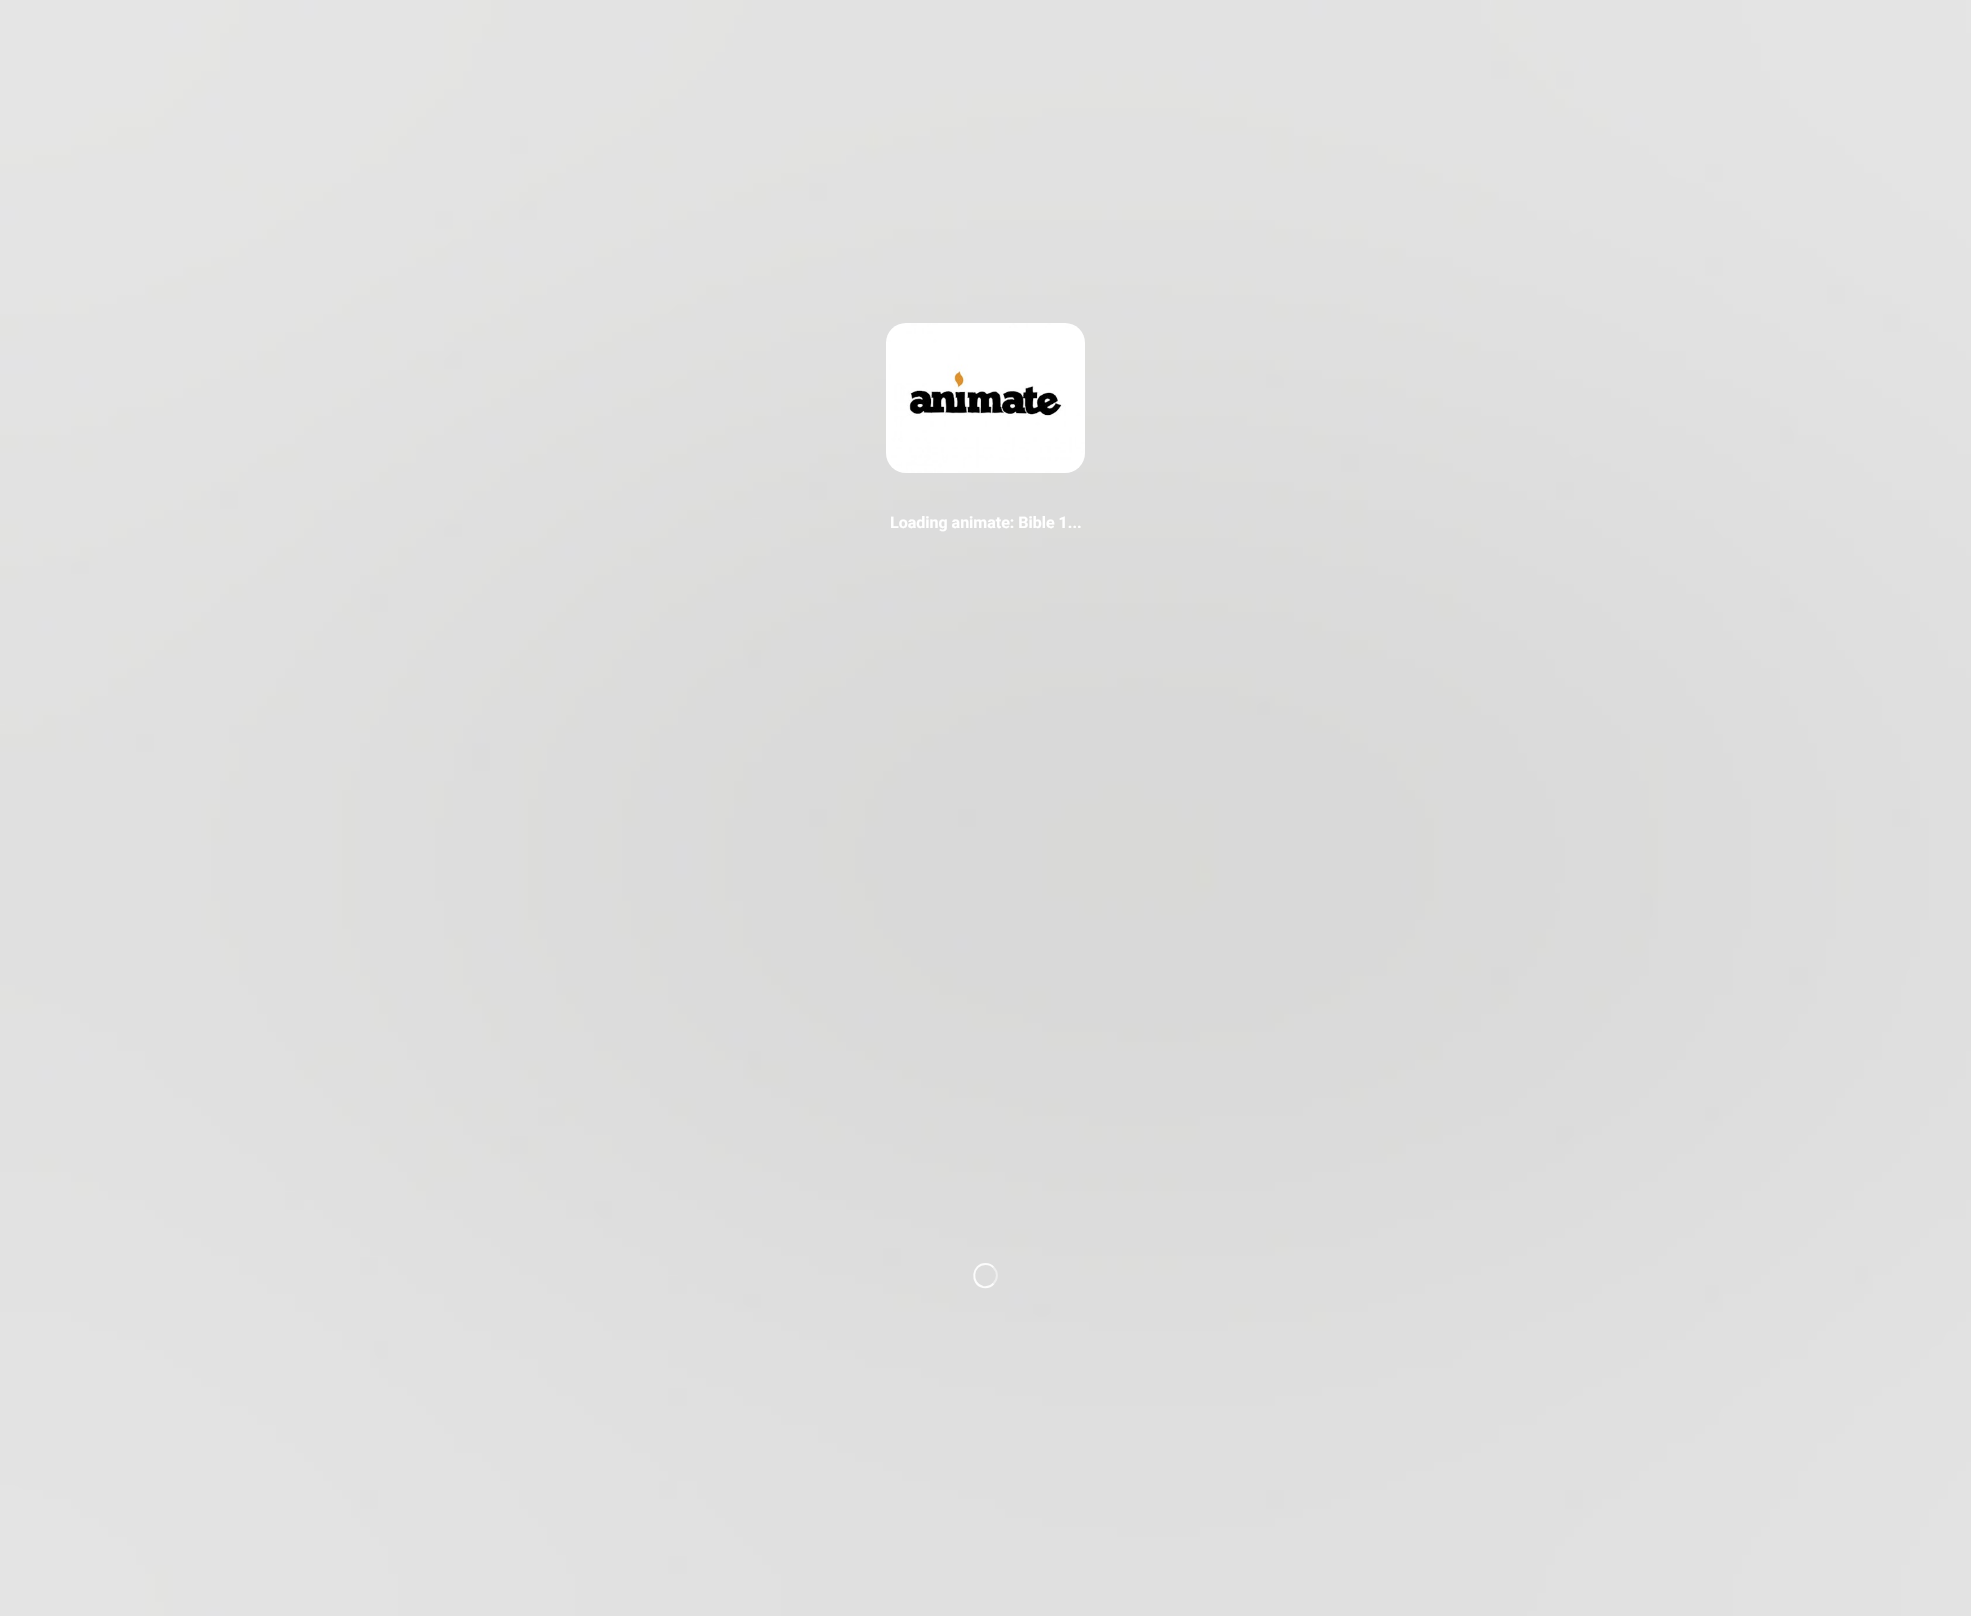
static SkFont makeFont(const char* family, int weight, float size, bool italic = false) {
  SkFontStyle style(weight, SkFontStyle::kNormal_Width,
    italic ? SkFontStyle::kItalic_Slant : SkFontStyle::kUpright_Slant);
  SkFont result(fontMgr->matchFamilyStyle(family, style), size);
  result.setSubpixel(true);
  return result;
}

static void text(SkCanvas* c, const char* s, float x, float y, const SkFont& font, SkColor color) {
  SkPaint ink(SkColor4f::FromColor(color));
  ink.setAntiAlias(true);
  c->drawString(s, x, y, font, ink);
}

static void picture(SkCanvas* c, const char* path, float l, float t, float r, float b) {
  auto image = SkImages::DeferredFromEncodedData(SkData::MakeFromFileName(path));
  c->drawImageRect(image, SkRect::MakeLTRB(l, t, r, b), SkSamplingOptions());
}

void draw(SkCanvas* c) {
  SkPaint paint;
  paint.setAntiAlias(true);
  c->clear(0xffffffff);
  picture(c, "img_01.png", 0, 0, 1971, 1616);
  picture(c, "img_02.png", 886, 323, 1085, 473);
  SkFont face1 = makeFont("Roboto", 700, 16);
  text(c, "Loading animate: Bible 1...", 890, 528, face1, 0xffffffff);
  paint.setStyle(SkPaint::kStroke_Style);
  paint.setStrokeWidth(2);
  paint.setColor(0xffeeeeee);
  c->drawPath(SkPathBuilder().moveTo(993.5f, 1267.5f).cubicTo(998, 1272, 998, 1279, 993.5f, 1283.5f).detach(), paint);
  paint.setColor(0xe6ffffff);
  c->drawPath(SkPathBuilder().moveTo(993.5f, 1283.5f).cubicTo(991, 1286.5f, 987, 1287.5f, 983, 1287).cubicTo(970, 1284, 972, 1264, 985.5f, 1264).cubicTo(988.5f, 1264, 991.5f, 1265, 993.5f, 1267.5f).detach(), paint);
}
